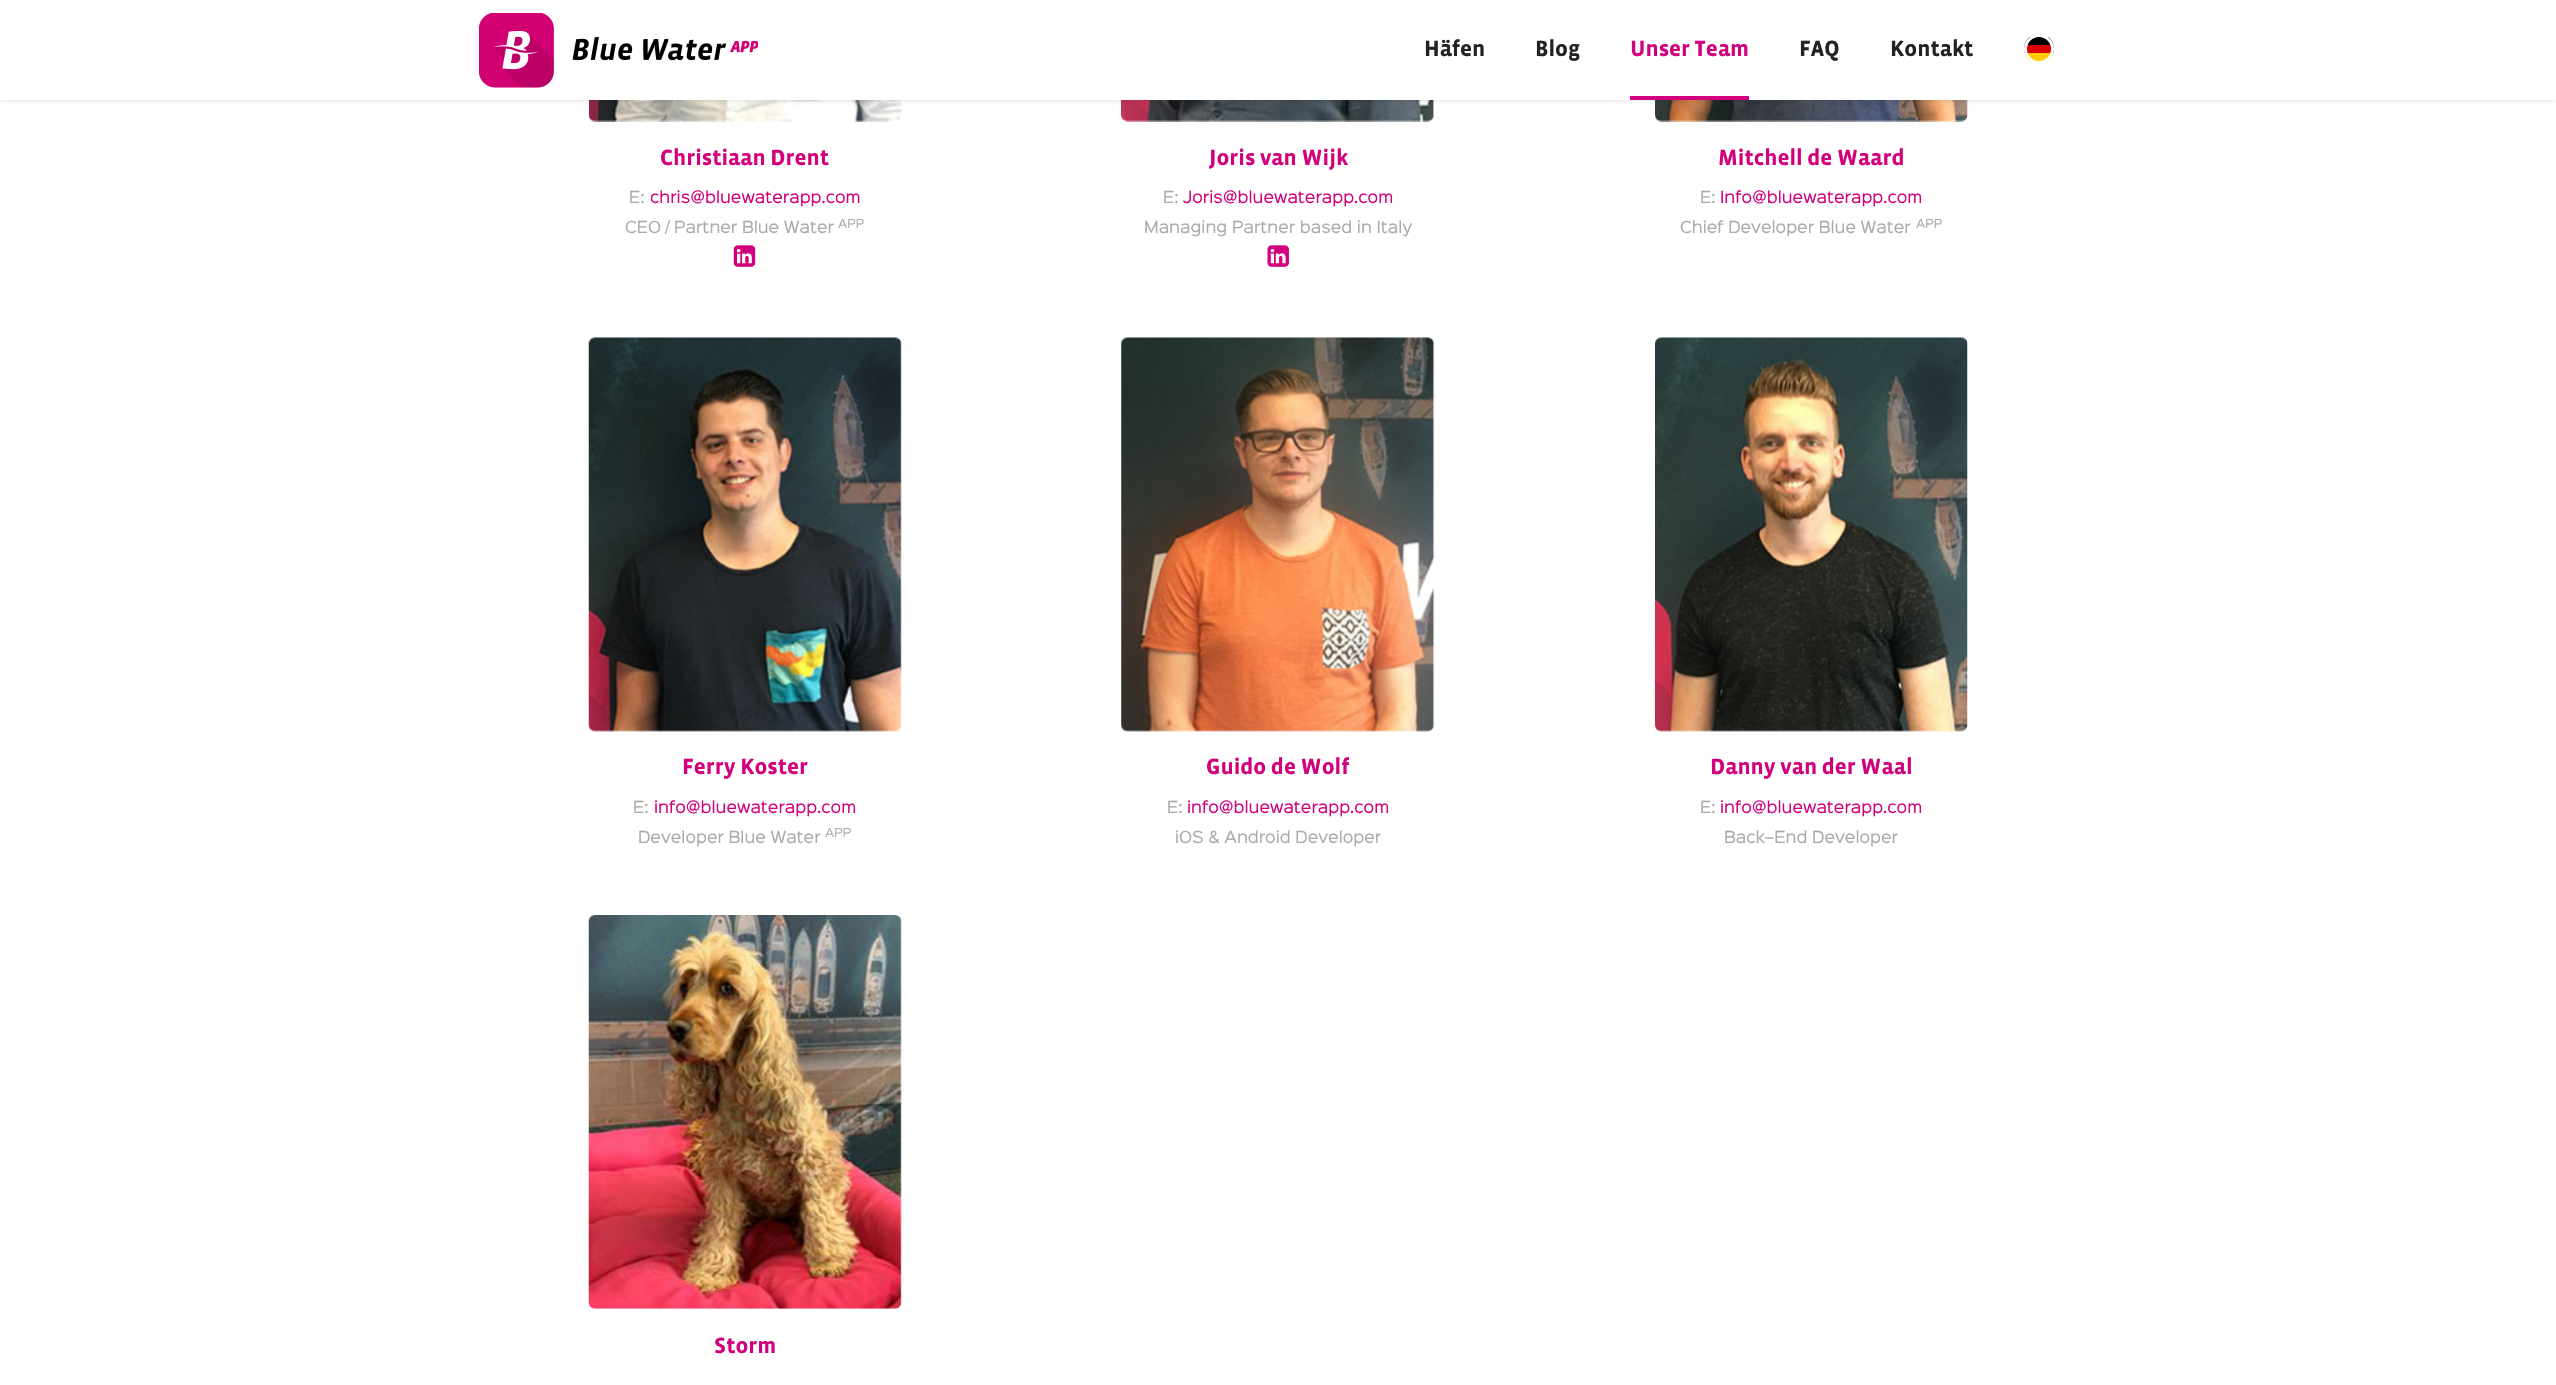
static SkFont makeFont(const char* family, int weight, float size, bool italic = false) {
  SkFontStyle style(weight, SkFontStyle::kNormal_Width,
    italic ? SkFontStyle::kItalic_Slant : SkFontStyle::kUpright_Slant);
  SkFont result(fontMgr->matchFamilyStyle(family, style), size);
  result.setSubpixel(true);
  return result;
}

static void text(SkCanvas* c, const char* s, float x, float y, const SkFont& font, SkColor color) {
  SkPaint ink(SkColor4f::FromColor(color));
  ink.setAntiAlias(true);
  c->drawString(s, x, y, font, ink);
}

static void box(SkCanvas* c, float l, float t, float r, float b, SkColor color) {
  SkPaint ink(SkColor4f::FromColor(color));
  ink.setAntiAlias(true);
  c->drawRect(SkRect::MakeLTRB(l, t, r, b), ink);
}

static void picture(SkCanvas* c, const char* path, float l, float t, float r, float b) {
  auto image = SkImages::DeferredFromEncodedData(SkData::MakeFromFileName(path));
  c->drawImageRect(image, SkRect::MakeLTRB(l, t, r, b), SkSamplingOptions());
}

void draw(SkCanvas* c) {
  SkPaint paint;
  paint.setAntiAlias(true);
  c->clear(0xffffffff);
  picture(c, "img_02.png", 589, 100, 902, 122);
  picture(c, "img_04.png", 1121, 100, 1434, 122);
  picture(c, "img_06.png", 1655, 100, 1968, 122);
  paint.setColor(0x1a000000);
  paint.setMaskFilter(SkMaskFilter::MakeBlur(kNormal_SkBlurStyle, 2));
  c->drawRect(SkRect::MakeLTRB(0, 1, 2556, 101), paint);
  paint.setMaskFilter(nullptr);
  box(c, 0, 0, 2556, 100, 0xffffffff);
  picture(c, "img_01.png", 479, 13, 758, 88);
  SkFont face1 = makeFont("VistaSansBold", 700, 22.5f);
  text(c, "Häfen", 1424, 56, face1, 0xff222222);
  text(c, "Blog", 1535, 56, face1, 0xff222222);
  text(c, "Unser Team", 1630, 56, face1, 0xffd3007d);
  box(c, 1630, 96, 1749, 100, 0xffd3007d);
  text(c, "FAQ", 1799, 56, face1, 0xff222222);
  text(c, "Kontakt", 1890, 56, face1, 0xff222222);
  c->save();
  c->clipPath(SkPathBuilder().moveTo(2039, 34).cubicTo(2047.5f, 34, 2054, 40.5f, 2054, 49).cubicTo(2054, 57.5f, 2047.5f, 64, 2039, 64).cubicTo(2030.5f, 64, 2024, 57.5f, 2024, 49).cubicTo(2024, 40.5f, 2030.5f, 34, 2039, 34).close().detach(), true);
  box(c, 2024, 53, 2054, 61, 0xffffce00);
  box(c, 2024, 37, 2054, 45, 0xff000000);
  box(c, 2024, 45, 2054, 53, 0xffdd0000);
  c->restore();
  paint.setStyle(SkPaint::kStroke_Style);
  paint.setStrokeWidth(3);
  paint.setColor(0xffffffff);
  c->drawCircle(2039, 49, 13.5f, paint);
  text(c, "Christiaan Drent", 660, 165, face1, 0xffd3007d);
  SkFont face2 = makeFont("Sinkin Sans", 400, 15);
  text(c, "E:", 629, 203, face2, 0xffaaaaaa);
  text(c, "chris@bluewaterapp.com", 650, 203, face2, 0xffd3007d);
  text(c, "CEO / Partner Blue Water", 625, 233, face2, 0xffaaaaaa);
  SkFont face3 = makeFont("Sinkin Sans", 400, 11);
  text(c, "APP", 838, 228, face3, 0xffaaaaaa);
  picture(c, "img_03.png", 733, 245, 756, 267);
  text(c, "Joris van Wijk", 1209, 165, face1, 0xffd3007d);
  text(c, "E:", 1163, 203, face2, 0xffaaaaaa);
  text(c, "Joris@bluewaterapp.com", 1183, 203, face2, 0xffd3007d);
  text(c, "Managing Partner based in Italy", 1144, 233, face2, 0xffaaaaaa);
  picture(c, "img_05.png", 1267, 245, 1289, 267);
  text(c, "Mitchell de Waard", 1718, 165, face1, 0xffd3007d);
  text(c, "E:", 1700, 203, face2, 0xffaaaaaa);
  text(c, "Info@bluewaterapp.com", 1720, 203, face2, 0xffd3007d);
  text(c, "Chief Developer Blue Water", 1680, 233, face2, 0xffaaaaaa);
  text(c, "APP", 1916, 228, face3, 0xffaaaaaa);
  picture(c, "img_07.png", 588, 337, 902, 732);
  text(c, "Ferry Koster", 682, 774, face1, 0xffd3007d);
  text(c, "E:", 633, 813, face2, 0xffaaaaaa);
  text(c, "info@bluewaterapp.com", 654, 813, face2, 0xffd3007d);
  text(c, "Developer Blue Water", 638, 843, face2, 0xffaaaaaa);
  text(c, "APP", 825, 837, face3, 0xffaaaaaa);
  picture(c, "img_08.png", 1121, 337, 1435, 732);
  text(c, "Guido de Wolf", 1206, 774, face1, 0xffd3007d);
  text(c, "E:", 1167, 813, face2, 0xffaaaaaa);
  text(c, "info@bluewaterapp.com", 1187, 813, face2, 0xffd3007d);
  text(c, "iOS & Android Developer", 1175, 843, face2, 0xffaaaaaa);
  picture(c, "img_09.png", 1655, 337, 1968, 732);
  text(c, "Danny van der Waal", 1710, 774, face1, 0xffd3007d);
  text(c, "E:", 1700, 813, face2, 0xffaaaaaa);
  text(c, "info@bluewaterapp.com", 1720, 813, face2, 0xffd3007d);
  text(c, "Back–End Developer", 1724, 843, face2, 0xffaaaaaa);
  picture(c, "img_10.png", 588, 915, 902, 1309);
  text(c, "Storm", 714, 1353, face1, 0xffd3007d);
}
